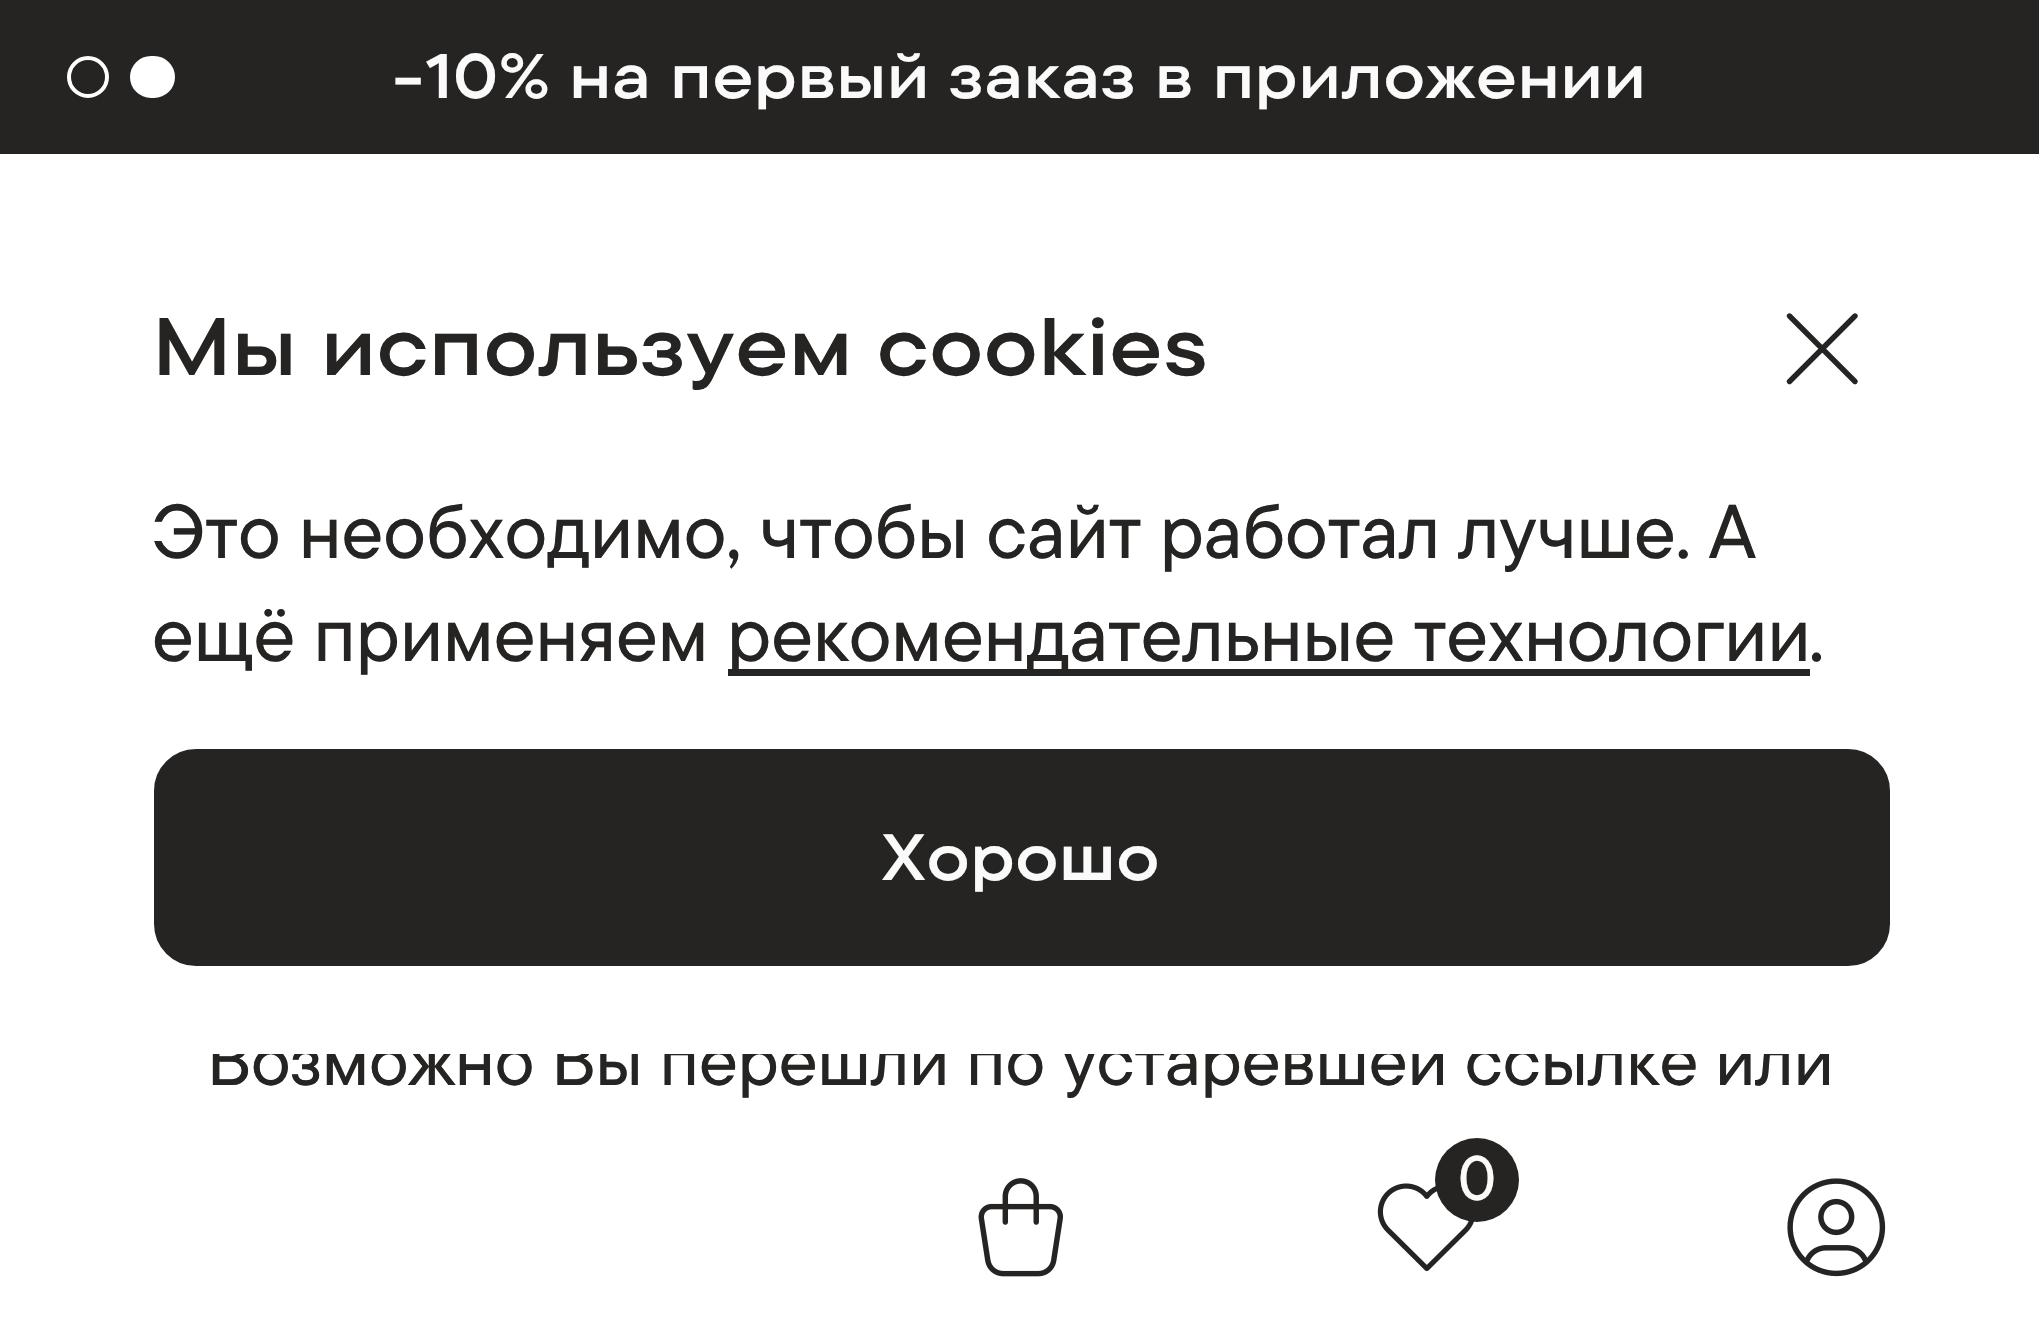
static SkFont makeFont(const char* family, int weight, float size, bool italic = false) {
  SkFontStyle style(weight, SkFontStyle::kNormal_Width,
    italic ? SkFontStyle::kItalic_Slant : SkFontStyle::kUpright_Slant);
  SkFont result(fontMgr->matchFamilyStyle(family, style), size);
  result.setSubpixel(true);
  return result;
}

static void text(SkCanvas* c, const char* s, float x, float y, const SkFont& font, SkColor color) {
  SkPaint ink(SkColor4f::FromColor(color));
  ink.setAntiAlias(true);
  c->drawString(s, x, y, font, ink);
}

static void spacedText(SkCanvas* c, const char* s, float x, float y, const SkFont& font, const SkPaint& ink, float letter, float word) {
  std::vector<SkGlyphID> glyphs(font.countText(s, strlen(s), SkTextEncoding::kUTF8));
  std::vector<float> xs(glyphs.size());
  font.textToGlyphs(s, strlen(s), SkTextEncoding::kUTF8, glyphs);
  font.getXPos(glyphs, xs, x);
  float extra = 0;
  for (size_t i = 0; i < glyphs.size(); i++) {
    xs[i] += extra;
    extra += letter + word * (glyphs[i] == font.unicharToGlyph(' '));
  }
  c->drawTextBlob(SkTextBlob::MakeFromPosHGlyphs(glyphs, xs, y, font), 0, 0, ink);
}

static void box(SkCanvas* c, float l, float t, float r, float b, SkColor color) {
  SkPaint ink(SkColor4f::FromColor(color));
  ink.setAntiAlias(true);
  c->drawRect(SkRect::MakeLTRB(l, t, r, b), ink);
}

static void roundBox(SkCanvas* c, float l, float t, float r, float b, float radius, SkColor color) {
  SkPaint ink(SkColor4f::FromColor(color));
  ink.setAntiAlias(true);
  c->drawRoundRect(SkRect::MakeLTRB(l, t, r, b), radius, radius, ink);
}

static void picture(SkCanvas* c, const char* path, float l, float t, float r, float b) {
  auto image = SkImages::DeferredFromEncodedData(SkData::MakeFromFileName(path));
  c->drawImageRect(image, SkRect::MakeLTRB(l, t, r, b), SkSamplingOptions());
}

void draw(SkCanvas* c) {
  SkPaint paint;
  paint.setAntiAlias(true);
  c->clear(0xffffffff);
  box(c, 0, 0, 2039, 154, 0xff262422);
  paint.setStyle(SkPaint::kStroke_Style);
  paint.setStrokeWidth(4);
  paint.setColor(0xffffffff);
  c->drawCircle(88, 77, 19, paint);
  paint.setStyle(SkPaint::kFill_Style);
  c->drawRoundRect(SkRect::MakeLTRB(132, 58, 173, 96), 19, 19, paint);
  paint.setStyle(SkPaint::kStroke_Style);
  c->drawRoundRect(SkRect::MakeLTRB(132, 58, 173, 96), 19, 19, paint);
  SkFont face1 = makeFont("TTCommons", 600, 62.9f);
  paint.setStyle(SkPaint::kFill_Style);
  paint.setColor(0xfffafafa);
  spacedText(c, "-10% на первый заказ в приложении", 392, 98, face1, paint, 0.3f, 0);
  SkFont face2 = makeFont("TTCommons", 500, 70.75f);
  text(c, "Возможно Вы перешли по устаревшей ссылке или", 207, 1085, face2, 0xff262422);
  roundBox(c, 67, 196, 1974, 1054, 67, 0xffffffff);
  SkFont face3 = makeFont("TTCommons", 600, 81.6f);
  text(c, "Мы используем cookies", 152, 375, face3, 0xff262422);
  paint.setStyle(SkPaint::kStroke_Style);
  paint.setStrokeWidth(5.4f);
  paint.setStrokeCap(SkPaint::kRound_Cap);
  paint.setStrokeJoin(SkPaint::kRound_Join);
  paint.setColor(0xff262422);
  c->drawPath(SkPathBuilder().moveTo(1855, 316).lineTo(1789.5f, 381.5f).moveTo(1789.5f, 316).lineTo(1855, 381.5f).detach(), paint);
  SkFont face4 = makeFont("TTCommons", 500, 76.2f);
  paint.setStyle(SkPaint::kFill_Style);
  spacedText(c, "Это необходимо, чтобы сайт работал лучше. А", 152, 558, face4, paint, 0, -0.25f);
  text(c, "ещё применяем", 152, 661, face4, 0xff262422);
  box(c, 728, 669, 1810, 676, 0xff262422);
  text(c, "рекомендательные технологии", 727, 661, face4, 0xff262422);
  text(c, ".", 1809, 661, face4, 0xff262422);
  c->drawRoundRect(SkRect::MakeLTRB(156, 751, 1888, 964), 40, 40, paint);
  paint.setStyle(SkPaint::kStroke_Style);
  paint.setStrokeWidth(4);
  paint.setStrokeCap(SkPaint::kButt_Cap);
  paint.setStrokeJoin(SkPaint::kMiter_Join);
  c->drawRoundRect(SkRect::MakeLTRB(156, 751, 1888, 964), 40, 40, paint);
  SkFont face5 = makeFont("TTCommons", 600, 65.5f);
  text(c, "Хорошо", 881, 880, face5, 0xfffafafa);
  picture(c, "img_01.png", 978, 1178, 1063, 1277);
  picture(c, "img_02.png", 1377, 1183, 1475, 1272);
  paint.setStyle(SkPaint::kFill_Style);
  c->drawCircle(1477, 1180, 42, paint);
  SkFont face6 = makeFont("TTCommons", 500, 62.9f);
  paint.setColor(0xfffafafa);
  spacedText(c, "0", 1458, 1200, face6, paint, 0.3f, 0);
  picture(c, "img_03.png", 1787, 1178, 1886, 1277);
}
